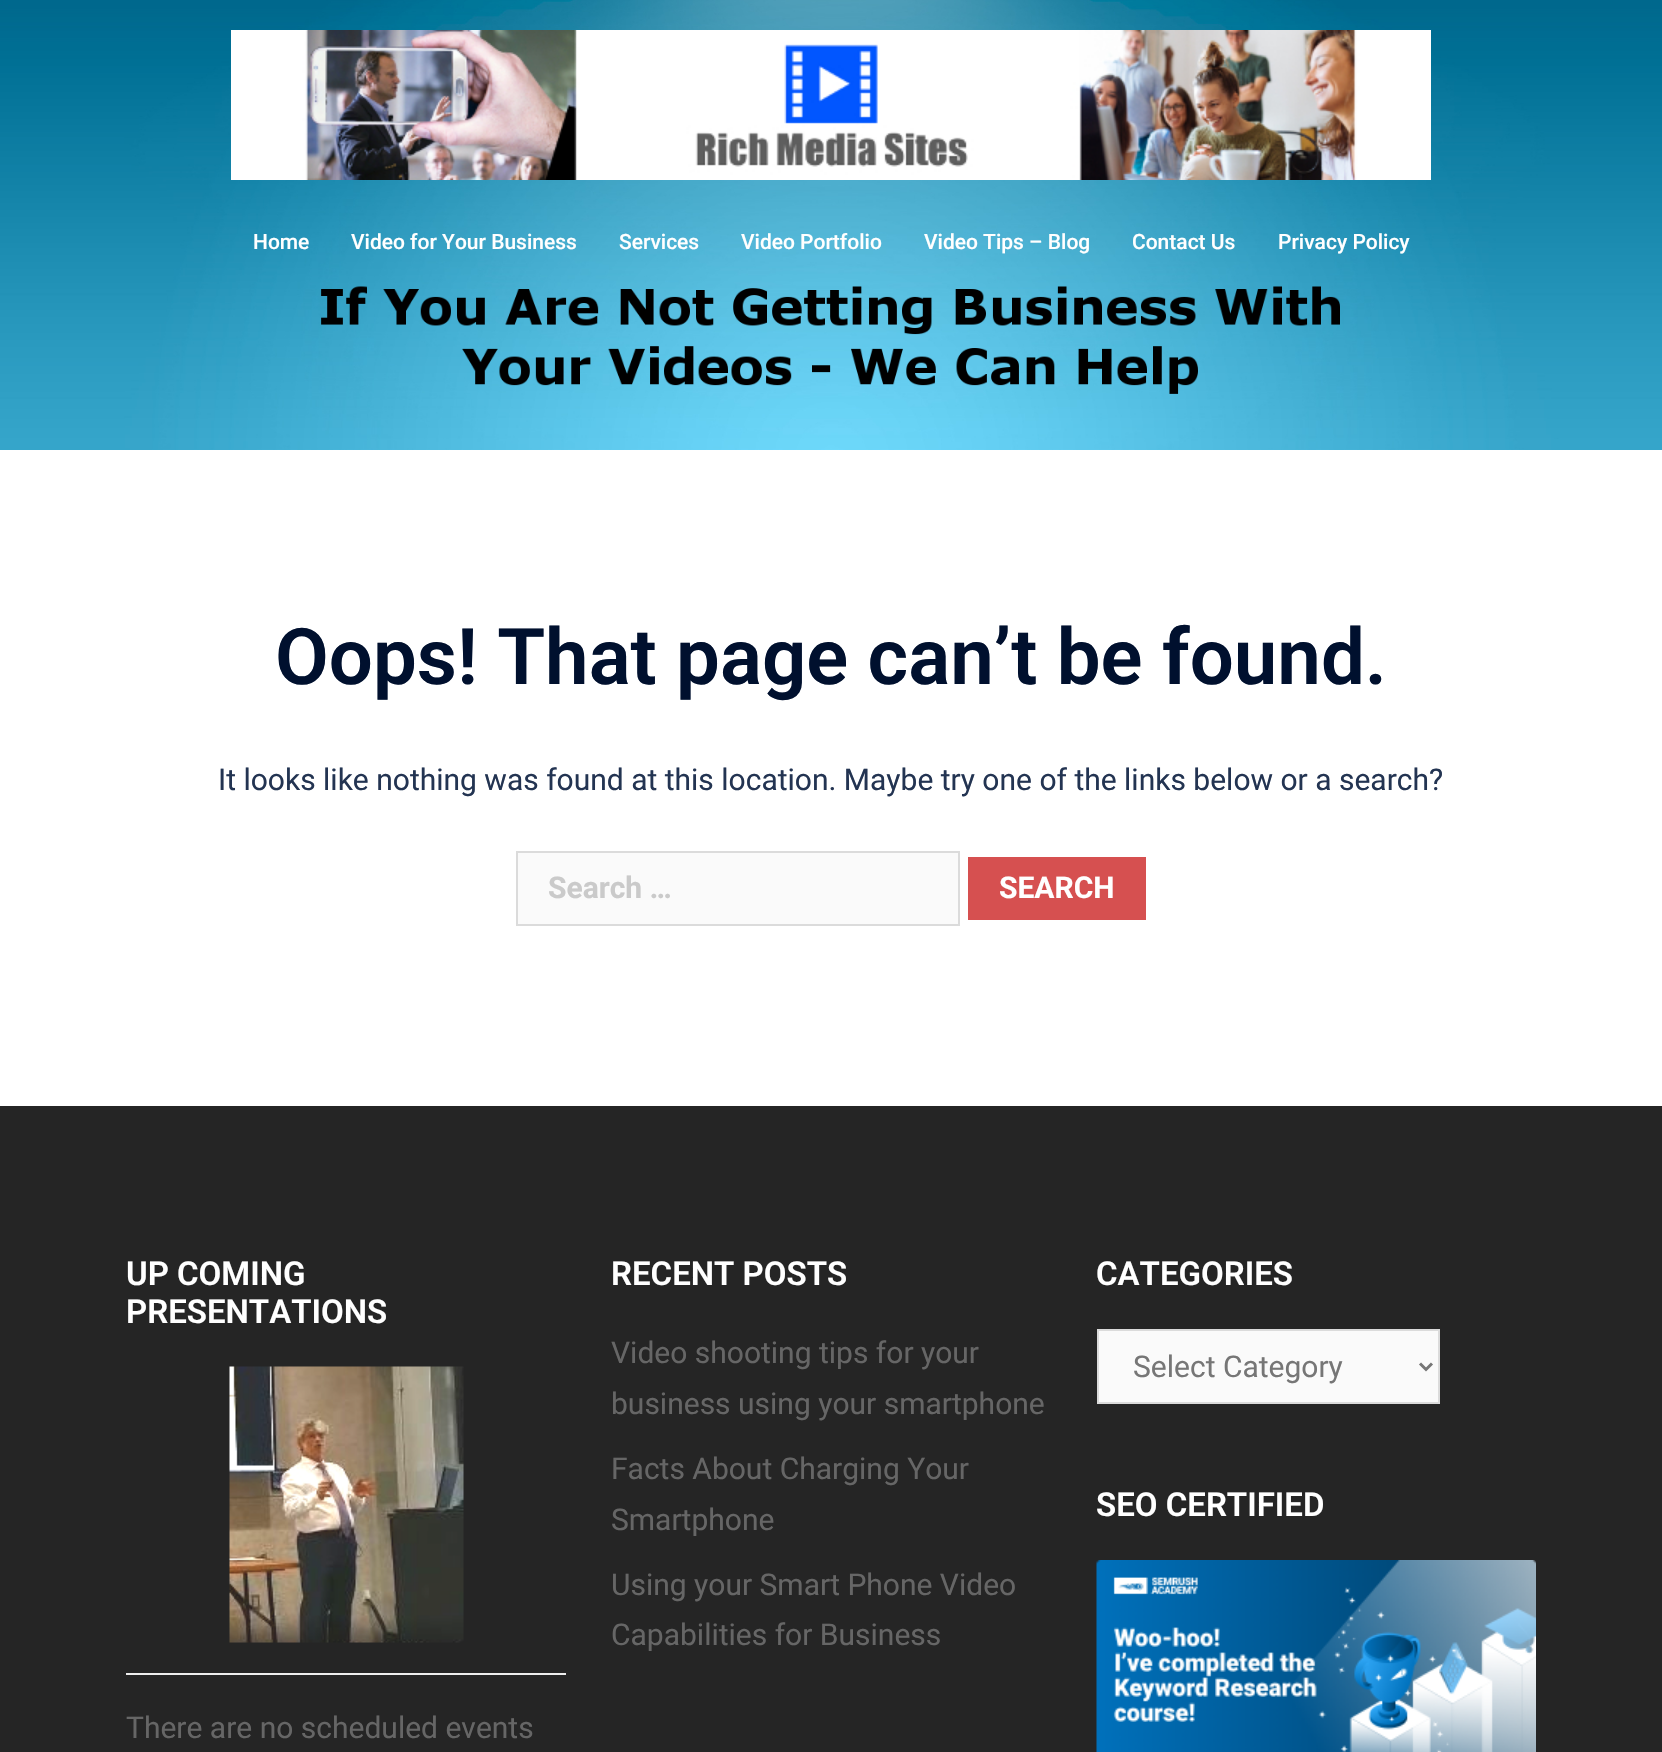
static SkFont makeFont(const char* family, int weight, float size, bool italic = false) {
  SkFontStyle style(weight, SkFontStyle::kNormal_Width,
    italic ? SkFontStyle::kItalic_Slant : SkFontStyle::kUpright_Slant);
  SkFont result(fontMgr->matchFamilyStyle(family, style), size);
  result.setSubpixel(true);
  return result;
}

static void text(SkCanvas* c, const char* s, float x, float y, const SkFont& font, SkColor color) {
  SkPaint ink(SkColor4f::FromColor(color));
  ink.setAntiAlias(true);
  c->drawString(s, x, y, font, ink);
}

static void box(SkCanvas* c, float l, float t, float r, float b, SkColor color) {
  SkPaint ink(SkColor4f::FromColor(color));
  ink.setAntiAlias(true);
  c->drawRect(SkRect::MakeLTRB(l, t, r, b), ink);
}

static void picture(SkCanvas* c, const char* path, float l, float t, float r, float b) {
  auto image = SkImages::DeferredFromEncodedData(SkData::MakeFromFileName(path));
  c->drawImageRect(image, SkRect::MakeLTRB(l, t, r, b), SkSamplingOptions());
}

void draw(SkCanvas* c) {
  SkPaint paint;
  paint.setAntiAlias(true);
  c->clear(0xffffffff);
  picture(c, "img_01.png", 0, 0, 1662, 450);
  picture(c, "img_02.png", 231, 30, 1431, 180);
  SkFont face1 = makeFont("Roboto", 500, 21);
  text(c, "Home", 253, 249, face1, 0xffffffff);
  text(c, "Video for Your Business", 351, 249, face1, 0xffffffff);
  text(c, "Services", 619, 249, face1, 0xffffffff);
  text(c, "Video Portfolio", 741, 249, face1, 0xffffffff);
  text(c, "Video Tips – Blog", 924, 249, face1, 0xffffffff);
  text(c, "Contact Us", 1132, 249, face1, 0xffffffff);
  text(c, "Privacy Policy", 1278, 249, face1, 0xffffffff);
  SkFont face2 = makeFont("Roboto", 600, 78);
  text(c, "Oops! That page can’t be found.", 275, 684, face2, 0xff00102e);
  SkFont face3 = makeFont("Roboto", 400, 30);
  text(c, "It looks like nothing was found at this location. Maybe try one of the links below or a search?", 218, 790, face3, 0xff233452);
  paint.setColor(0xfffafafa);
  c->drawRect(SkRect::MakeLTRB(517, 852, 959, 925), paint);
  paint.setStyle(SkPaint::kStroke_Style);
  paint.setStrokeWidth(2);
  paint.setColor(0xffdbdbdb);
  c->drawRect(SkRect::MakeLTRB(517, 852, 959, 925), paint);
  SkFont face4 = makeFont("Roboto", 700, 30);
  text(c, "Search …", 548, 898, face4, 0xffcacaca);
  box(c, 968, 857, 1146, 920, 0xffd65050);
  text(c, "SEARCH", 999, 898, face4, 0xffffffff);
  box(c, 0, 1106, 1662, 1752, 0xff252525);
  SkFont face5 = makeFont("Roboto", 600, 33);
  text(c, "UP COMING", 126, 1285, face5, 0xffffffff);
  text(c, "PRESENTATIONS", 126, 1323, face5, 0xffffffff);
  picture(c, "img_03.png", 229, 1366, 464, 1643);
  box(c, 126, 1673, 566, 1675, 0xffeeeeee);
  text(c, "There are no scheduled events", 126, 1738, face3, 0xff666666);
  text(c, "RECENT POSTS", 611, 1285, face5, 0xffffffff);
  text(c, "Video shooting tips for your", 611, 1363, face3, 0xff666666);
  text(c, "business using your smartphone", 611, 1414, face3, 0xff666666);
  text(c, "Facts About Charging Your", 611, 1479, face3, 0xff666666);
  text(c, "Smartphone", 611, 1530, face3, 0xff666666);
  text(c, "Using your Smart Phone Video", 611, 1595, face3, 0xff666666);
  text(c, "Capabilities for Business", 611, 1645, face3, 0xff666666);
  text(c, "CATEGORIES", 1096, 1285, face5, 0xffffffff);
  paint.setStyle(SkPaint::kFill_Style);
  paint.setColor(0xfffafafa);
  c->drawRect(SkRect::MakeLTRB(1098, 1330, 1439, 1403), paint);
  paint.setStyle(SkPaint::kStroke_Style);
  paint.setColor(0xffdbdbdb);
  c->drawRect(SkRect::MakeLTRB(1098, 1330, 1439, 1403), paint);
  paint.setStrokeWidth(3);
  paint.setColor(0xff767676);
  c->drawPath(SkPathBuilder().moveTo(1420, 1363.5f).lineTo(1426, 1369.5f).lineTo(1432, 1363.5f).detach(), paint);
  text(c, "Select Category", 1133, 1377, face3, 0xff767676);
  text(c, "SEO CERTIFIED", 1096, 1516, face5, 0xffffffff);
  picture(c, "img_04.png", 1096, 1560, 1536, 1752);
}
